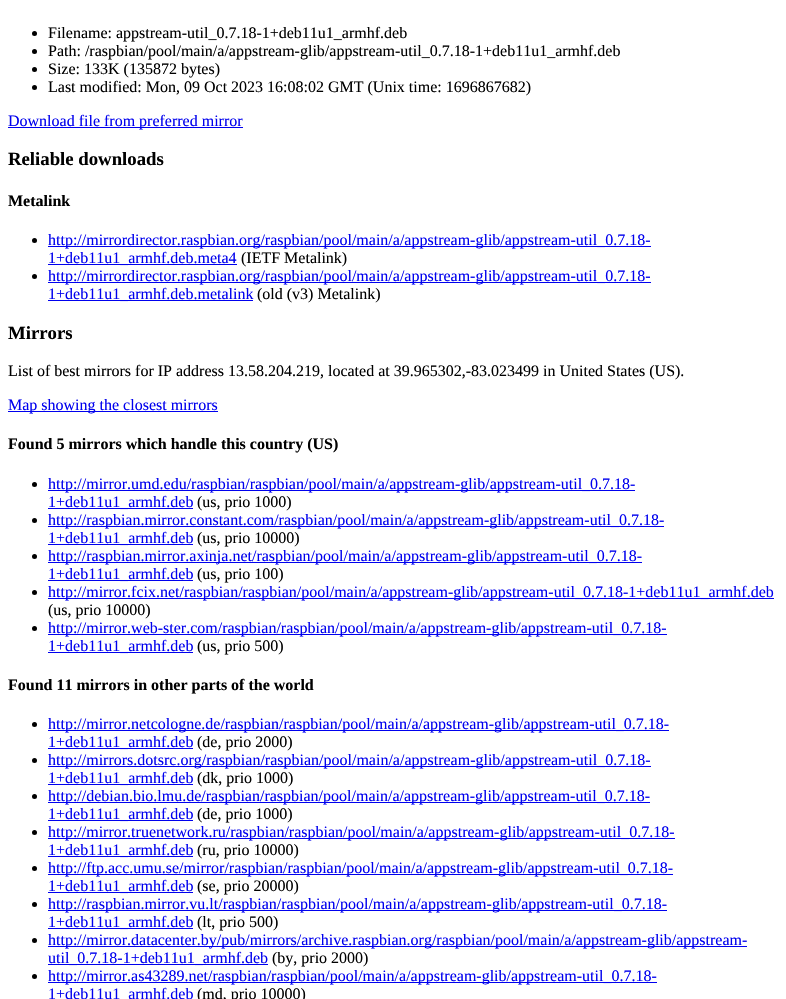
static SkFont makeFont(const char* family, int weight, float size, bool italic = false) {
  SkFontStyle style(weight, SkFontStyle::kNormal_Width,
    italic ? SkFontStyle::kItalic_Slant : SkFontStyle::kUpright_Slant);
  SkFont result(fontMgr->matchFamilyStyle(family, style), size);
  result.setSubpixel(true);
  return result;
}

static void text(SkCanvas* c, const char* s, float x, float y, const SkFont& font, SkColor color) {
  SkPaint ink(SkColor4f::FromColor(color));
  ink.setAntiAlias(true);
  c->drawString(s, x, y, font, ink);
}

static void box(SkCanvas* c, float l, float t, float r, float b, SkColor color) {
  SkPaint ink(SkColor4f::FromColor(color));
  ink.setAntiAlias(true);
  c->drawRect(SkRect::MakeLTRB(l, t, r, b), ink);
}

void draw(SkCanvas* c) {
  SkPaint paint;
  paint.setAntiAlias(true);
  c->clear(0xffffffff);
  paint.setColor(0xff000000);
  c->drawCircle(34.5f, 33.5f, 2.5f, paint);
  SkFont face1 = makeFont("Liberation Serif", 400, 16);
  text(c, "Filename: appstream-util_0.7.18-1+deb11u1_armhf.deb", 48, 38, face1, 0xff000000);
  c->drawCircle(34.5f, 51.5f, 2.5f, paint);
  text(c, "Path: /raspbian/pool/main/a/appstream-glib/appstream-util_0.7.18-1+deb11u1_armhf.deb", 48, 56, face1, 0xff000000);
  c->drawCircle(34.5f, 69.5f, 2.5f, paint);
  text(c, "Size: 133K (135872 bytes)", 48, 74, face1, 0xff000000);
  c->drawCircle(34.5f, 87.5f, 2.5f, paint);
  text(c, "Last modified: Mon, 09 Oct 2023 16:08:02 GMT (Unix time: 1696867682)", 48, 92, face1, 0xff000000);
  box(c, 8, 127, 243, 128, 0xff0000ee);
  text(c, "Download file from preferred mirror", 8, 126, face1, 0xff0000ee);
  SkFont face2 = makeFont("Liberation Serif", 700, 18.75f);
  text(c, "Reliable downloads", 8, 165, face2, 0xff000000);
  SkFont face3 = makeFont("Liberation Serif", 700, 16);
  text(c, "Metalink", 8, 206, face3, 0xff000000);
  c->drawCircle(34.5f, 240.5f, 2.5f, paint);
  box(c, 48, 246, 651, 247, 0xff0000ee);
  text(c, "http://mirrordirector.raspbian.org/raspbian/pool/main/a/appstream-glib/appstream-util_0.7.18-", 48, 245, face1, 0xff0000ee);
  box(c, 48, 264, 237, 265, 0xff0000ee);
  text(c, "1+deb11u1_armhf.deb.meta4", 48, 263, face1, 0xff0000ee);
  text(c, "(IETF Metalink)", 241, 263, face1, 0xff000000);
  c->drawCircle(34.5f, 276.5f, 2.5f, paint);
  box(c, 48, 282, 651, 283, 0xff0000ee);
  text(c, "http://mirrordirector.raspbian.org/raspbian/pool/main/a/appstream-glib/appstream-util_0.7.18-", 48, 281, face1, 0xff0000ee);
  box(c, 48, 300, 253, 301, 0xff0000ee);
  text(c, "1+deb11u1_armhf.deb.metalink", 48, 299, face1, 0xff0000ee);
  text(c, "(old (v3) Metalink)", 257, 299, face1, 0xff000000);
  text(c, "Mirrors", 8, 339, face2, 0xff000000);
  text(c, "List of best mirrors for IP address 13.58.204.219, located at 39.965302,-83.023499 in United States (US).", 8, 376, face1, 0xff000000);
  box(c, 8, 411, 218, 412, 0xff0000ee);
  text(c, "Map showing the closest mirrors", 8, 410, face1, 0xff0000ee);
  text(c, "Found 5 mirrors which handle this country (US)", 8, 449, face3, 0xff000000);
  c->drawCircle(34.5f, 484.5f, 2.5f, paint);
  box(c, 48, 490, 635, 491, 0xff0000ee);
  text(c, "http://mirror.umd.edu/raspbian/raspbian/pool/main/a/appstream-glib/appstream-util_0.7.18-", 48, 489, face1, 0xff0000ee);
  box(c, 48, 508, 193, 509, 0xff0000ee);
  text(c, "1+deb11u1_armhf.deb", 48, 507, face1, 0xff0000ee);
  text(c, "(us, prio 1000)", 197, 507, face1, 0xff000000);
  c->drawCircle(34.5f, 520.5f, 2.5f, paint);
  box(c, 48, 526, 664, 527, 0xff0000ee);
  text(c, "http://raspbian.mirror.constant.com/raspbian/pool/main/a/appstream-glib/appstream-util_0.7.18-", 48, 525, face1, 0xff0000ee);
  box(c, 48, 544, 193, 545, 0xff0000ee);
  text(c, "1+deb11u1_armhf.deb", 48, 543, face1, 0xff0000ee);
  text(c, "(us, prio 10000)", 197, 543, face1, 0xff000000);
  c->drawCircle(34.5f, 556.5f, 2.5f, paint);
  box(c, 48, 562, 642, 563, 0xff0000ee);
  text(c, "http://raspbian.mirror.axinja.net/raspbian/pool/main/a/appstream-glib/appstream-util_0.7.18-", 48, 561, face1, 0xff0000ee);
  box(c, 48, 580, 193, 581, 0xff0000ee);
  text(c, "1+deb11u1_armhf.deb", 48, 579, face1, 0xff0000ee);
  text(c, "(us, prio 100)", 197, 579, face1, 0xff000000);
  c->drawCircle(34.5f, 592.5f, 2.5f, paint);
  box(c, 48, 598, 774, 599, 0xff0000ee);
  text(c, "http://mirror.fcix.net/raspbian/raspbian/pool/main/a/appstream-glib/appstream-util_0.7.18-1+deb11u1_armhf.deb", 48, 597, face1, 0xff0000ee);
  text(c, "(us, prio 10000)", 48, 615, face1, 0xff000000);
  c->drawCircle(34.5f, 628.5f, 2.5f, paint);
  box(c, 48, 634, 667, 635, 0xff0000ee);
  text(c, "http://mirror.web-ster.com/raspbian/raspbian/pool/main/a/appstream-glib/appstream-util_0.7.18-", 48, 633, face1, 0xff0000ee);
  box(c, 48, 652, 193, 653, 0xff0000ee);
  text(c, "1+deb11u1_armhf.deb", 48, 651, face1, 0xff0000ee);
  text(c, "(us, prio 500)", 197, 651, face1, 0xff000000);
  text(c, "Found 11 mirrors in other parts of the world", 8, 690, face3, 0xff000000);
  c->drawCircle(34.5f, 724.5f, 2.5f, paint);
  box(c, 48, 730, 669, 731, 0xff0000ee);
  text(c, "http://mirror.netcologne.de/raspbian/raspbian/pool/main/a/appstream-glib/appstream-util_0.7.18-", 48, 729, face1, 0xff0000ee);
  box(c, 48, 748, 193, 749, 0xff0000ee);
  text(c, "1+deb11u1_armhf.deb", 48, 747, face1, 0xff0000ee);
  text(c, "(de, prio 2000)", 197, 747, face1, 0xff000000);
  c->drawCircle(34.5f, 760.5f, 2.5f, paint);
  box(c, 48, 766, 651, 767, 0xff0000ee);
  text(c, "http://mirrors.dotsrc.org/raspbian/raspbian/pool/main/a/appstream-glib/appstream-util_0.7.18-", 48, 765, face1, 0xff0000ee);
  box(c, 48, 784, 193, 785, 0xff0000ee);
  text(c, "1+deb11u1_armhf.deb", 48, 783, face1, 0xff0000ee);
  text(c, "(dk, prio 1000)", 197, 783, face1, 0xff000000);
  c->drawCircle(34.5f, 796.5f, 2.5f, paint);
  box(c, 48, 802, 650, 803, 0xff0000ee);
  text(c, "http://debian.bio.lmu.de/raspbian/raspbian/pool/main/a/appstream-glib/appstream-util_0.7.18-", 48, 801, face1, 0xff0000ee);
  box(c, 48, 820, 193, 821, 0xff0000ee);
  text(c, "1+deb11u1_armhf.deb", 48, 819, face1, 0xff0000ee);
  text(c, "(de, prio 1000)", 197, 819, face1, 0xff000000);
  c->drawCircle(34.5f, 832.5f, 2.5f, paint);
  box(c, 48, 838, 675, 839, 0xff0000ee);
  text(c, "http://mirror.truenetwork.ru/raspbian/raspbian/pool/main/a/appstream-glib/appstream-util_0.7.18-", 48, 837, face1, 0xff0000ee);
  box(c, 48, 856, 193, 857, 0xff0000ee);
  text(c, "1+deb11u1_armhf.deb", 48, 855, face1, 0xff0000ee);
  text(c, "(ru, prio 10000)", 197, 855, face1, 0xff000000);
  c->drawCircle(34.5f, 868.5f, 2.5f, paint);
  box(c, 48, 874, 673, 875, 0xff0000ee);
  text(c, "http://ftp.acc.umu.se/mirror/raspbian/raspbian/pool/main/a/appstream-glib/appstream-util_0.7.18-", 48, 873, face1, 0xff0000ee);
  box(c, 48, 892, 193, 893, 0xff0000ee);
  text(c, "1+deb11u1_armhf.deb", 48, 891, face1, 0xff0000ee);
  text(c, "(se, prio 20000)", 197, 891, face1, 0xff000000);
  c->drawCircle(34.5f, 904.5f, 2.5f, paint);
  box(c, 48, 910, 667, 911, 0xff0000ee);
  text(c, "http://raspbian.mirror.vu.lt/raspbian/raspbian/pool/main/a/appstream-glib/appstream-util_0.7.18-", 48, 909, face1, 0xff0000ee);
  box(c, 48, 928, 193, 929, 0xff0000ee);
  text(c, "1+deb11u1_armhf.deb", 48, 927, face1, 0xff0000ee);
  text(c, "(lt, prio 500)", 197, 927, face1, 0xff000000);
  c->drawCircle(34.5f, 940.5f, 2.5f, paint);
  box(c, 48, 946, 747, 947, 0xff0000ee);
  text(c, "http://mirror.datacenter.by/pub/mirrors/archive.raspbian.org/raspbian/pool/main/a/appstream-glib/appstream-", 48, 945, face1, 0xff0000ee);
  box(c, 48, 964, 268, 965, 0xff0000ee);
  text(c, "util_0.7.18-1+deb11u1_armhf.deb", 48, 963, face1, 0xff0000ee);
  text(c, "(by, prio 2000)", 272, 963, face1, 0xff000000);
  c->drawCircle(34.5f, 976.5f, 2.5f, paint);
  box(c, 48, 982, 657, 983, 0xff0000ee);
  text(c, "http://mirror.as43289.net/raspbian/raspbian/pool/main/a/appstream-glib/appstream-util_0.7.18-", 48, 981, face1, 0xff0000ee);
  text(c, "1+deb11u1_armhf.deb", 48, 999, face1, 0xff0000ee);
  text(c, "(md, prio 10000)", 197, 999, face1, 0xff000000);
}
